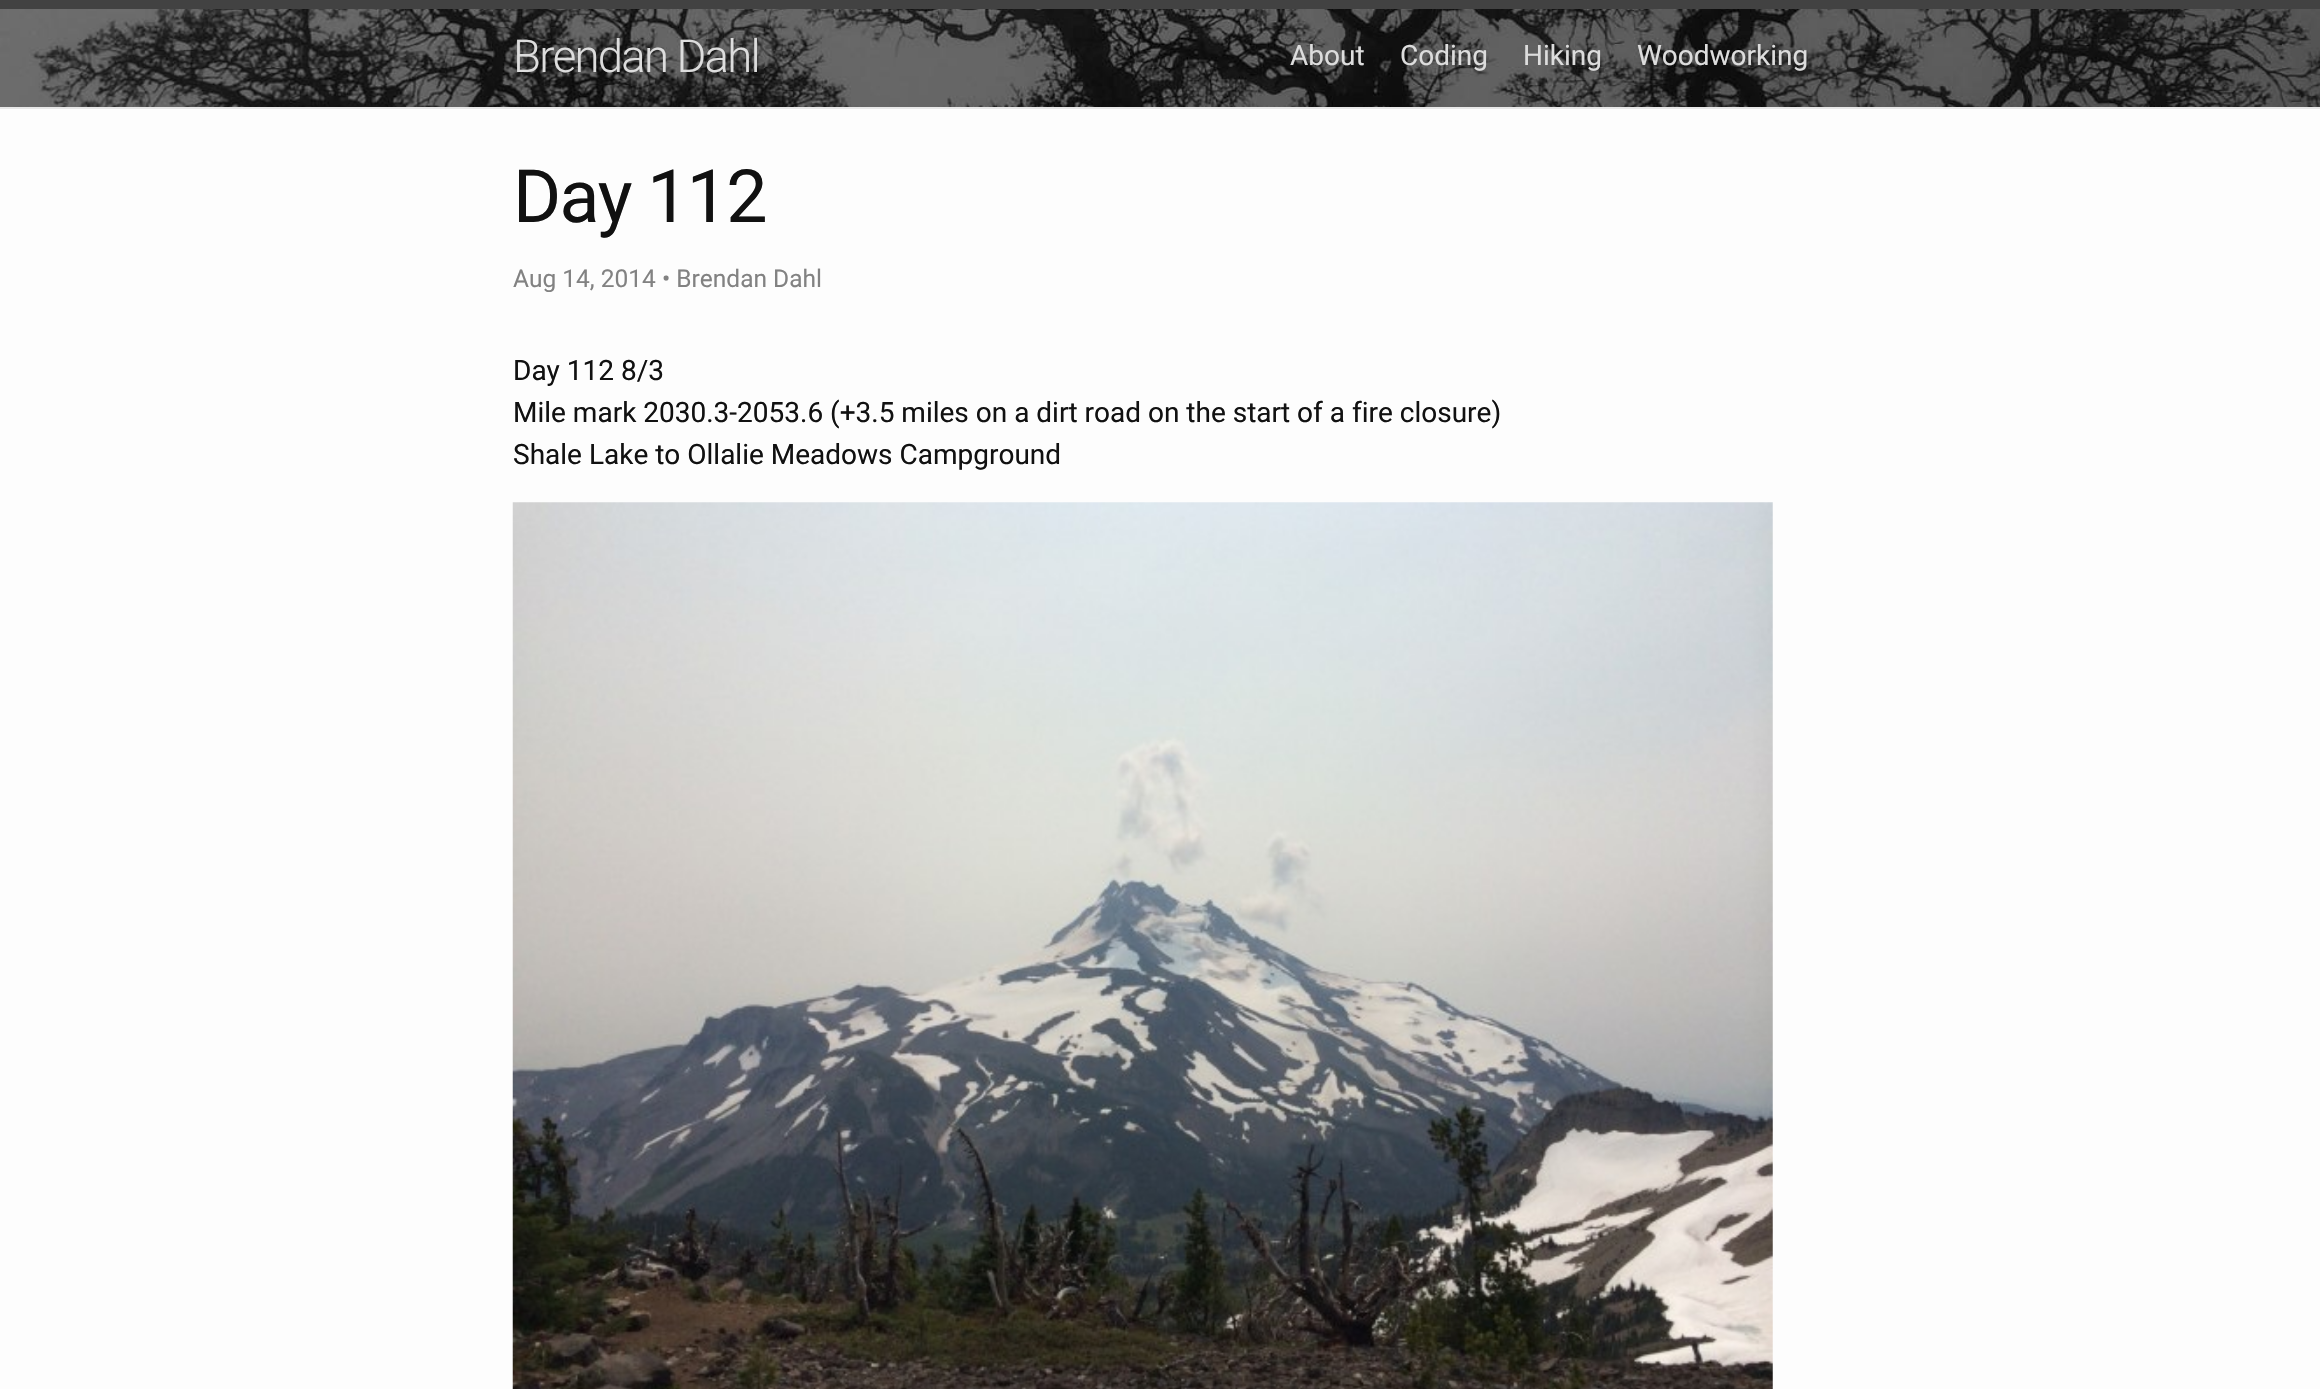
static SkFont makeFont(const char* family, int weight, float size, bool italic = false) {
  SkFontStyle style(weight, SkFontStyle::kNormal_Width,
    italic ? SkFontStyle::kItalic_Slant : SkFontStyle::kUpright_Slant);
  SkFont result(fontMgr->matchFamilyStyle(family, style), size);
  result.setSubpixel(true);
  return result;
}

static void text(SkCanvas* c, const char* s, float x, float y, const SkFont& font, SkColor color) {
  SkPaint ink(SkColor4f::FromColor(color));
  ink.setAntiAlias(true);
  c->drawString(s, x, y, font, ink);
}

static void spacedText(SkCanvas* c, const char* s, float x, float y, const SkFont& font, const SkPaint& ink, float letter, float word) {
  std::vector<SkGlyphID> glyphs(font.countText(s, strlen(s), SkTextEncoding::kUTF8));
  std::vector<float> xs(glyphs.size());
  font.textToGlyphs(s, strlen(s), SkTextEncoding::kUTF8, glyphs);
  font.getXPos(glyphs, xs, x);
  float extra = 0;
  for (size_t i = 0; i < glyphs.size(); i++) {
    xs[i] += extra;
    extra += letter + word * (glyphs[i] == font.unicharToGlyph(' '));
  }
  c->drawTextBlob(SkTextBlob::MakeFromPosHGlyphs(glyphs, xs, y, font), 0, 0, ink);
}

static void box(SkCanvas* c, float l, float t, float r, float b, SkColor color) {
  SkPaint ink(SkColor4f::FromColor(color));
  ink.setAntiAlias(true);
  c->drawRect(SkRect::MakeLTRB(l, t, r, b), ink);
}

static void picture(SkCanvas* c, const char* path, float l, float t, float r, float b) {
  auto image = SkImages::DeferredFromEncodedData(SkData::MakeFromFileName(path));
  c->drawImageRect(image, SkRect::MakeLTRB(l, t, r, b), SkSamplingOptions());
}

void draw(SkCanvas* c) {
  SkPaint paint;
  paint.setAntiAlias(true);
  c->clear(0xfffdfdfd);
  picture(c, "img_01.png", 0, 9, 2320, 107);
  box(c, 0, 0, 2320, 9, 0xff424242);
  box(c, 0, 107, 2320, 109, 0xffe8e8e8);
  SkFont face1 = makeFont("Roboto", 300, 45.5f);
  paint.setColor(0xffdddddd);
  spacedText(c, "Brendan Dahl", 513, 72, face1, paint, -1.75f, 0);
  SkFont face2 = makeFont("Roboto", 400, 28);
  text(c, "About", 1290, 65, face2, 0xffdddddd);
  text(c, "Coding", 1400, 65, face2, 0xffdddddd);
  text(c, "Hiking", 1523, 65, face2, 0xffdddddd);
  text(c, "Woodworking", 1637, 65, face2, 0xffdddddd);
  SkFont face3 = makeFont("Roboto", 400, 73.5f);
  paint.setColor(0xff111111);
  spacedText(c, "Day 112", 513, 222, face3, paint, -1.75f, 0);
  SkFont face4 = makeFont("Roboto", 400, 24.5f);
  text(c, "Aug 14, 2014 • Brendan Dahl", 513, 287, face4, 0xff828282);
  text(c, "Day 112 8/3", 513, 380, face2, 0xff111111);
  text(c, "Mile mark 2030.3-2053.6 (+3.5 miles on a dirt road on the start of a fire closure)", 513, 422, face2, 0xff111111);
  text(c, "Shale Lake to Ollalie Meadows Campground", 513, 464, face2, 0xff111111);
  picture(c, "img_02.png", 512, 502, 1773, 1389);
}
